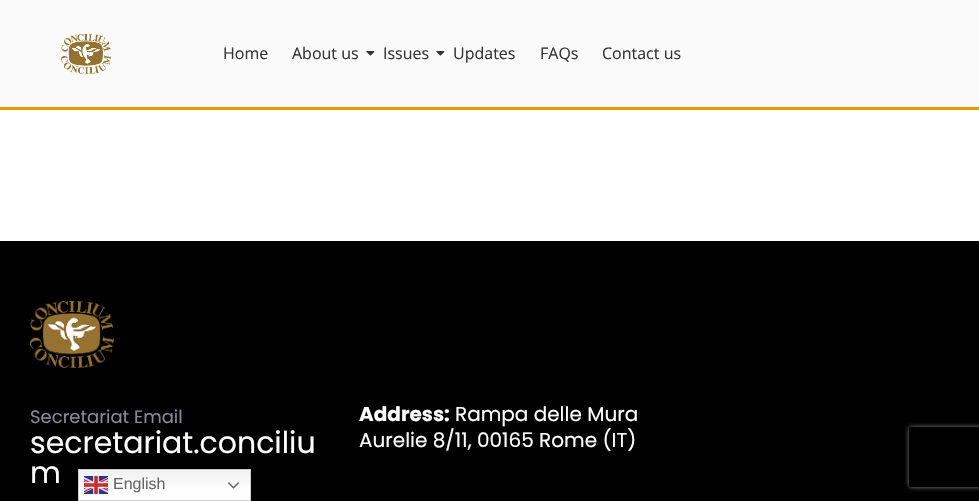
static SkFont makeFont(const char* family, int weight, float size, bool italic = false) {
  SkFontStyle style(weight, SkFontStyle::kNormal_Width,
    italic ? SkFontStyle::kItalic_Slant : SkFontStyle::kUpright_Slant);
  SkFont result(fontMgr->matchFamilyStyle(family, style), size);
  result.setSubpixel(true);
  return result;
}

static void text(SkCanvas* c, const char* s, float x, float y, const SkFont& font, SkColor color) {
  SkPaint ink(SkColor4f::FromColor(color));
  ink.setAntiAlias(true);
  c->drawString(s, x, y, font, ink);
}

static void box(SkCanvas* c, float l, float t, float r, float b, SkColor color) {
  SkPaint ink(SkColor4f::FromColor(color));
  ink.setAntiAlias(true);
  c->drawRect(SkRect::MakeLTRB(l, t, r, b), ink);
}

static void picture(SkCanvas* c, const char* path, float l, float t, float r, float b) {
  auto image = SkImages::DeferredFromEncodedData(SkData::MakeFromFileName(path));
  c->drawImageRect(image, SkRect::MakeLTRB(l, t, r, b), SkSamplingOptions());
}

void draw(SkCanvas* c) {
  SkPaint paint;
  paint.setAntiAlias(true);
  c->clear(0xffffffff);
  box(c, 0, 0, 979, 107, 0xfffafafa);
  box(c, 0, 107, 979, 110, 0xffe79a00);
  picture(c, "img_01.png", 61, 34, 111, 74);
  SkFont face1 = makeFont("Open Sans", 400, 16);
  text(c, "Home", 223, 59, face1, 0xff333333);
  text(c, "About us", 292, 59, face1, 0xff333333);
  picture(c, "img_02.png", 366, 51, 375, 56);
  text(c, "Issues", 383, 59, face1, 0xff333333);
  picture(c, "img_02.png", 436, 51, 445, 56);
  text(c, "Updates", 453, 59, face1, 0xff333333);
  text(c, "FAQs", 540, 59, face1, 0xff333333);
  text(c, "Contact us", 602, 59, face1, 0xff333333);
  box(c, 0, 241, 979, 501, 0xff000000);
  picture(c, "img_03.png", 30, 301, 114, 368);
  SkFont face2 = makeFont("Poppins", 400, 18);
  text(c, "Secretariat Email", 30, 423, face2, 0xff878b98);
  SkFont face3 = makeFont("Poppins", 400, 30);
  text(c, "secretariat.conciliu", 30, 453, face3, 0xffffffff);
  text(c, "m", 30, 483, face3, 0xffffffff);
  SkFont face4 = makeFont("Poppins", 700, 20);
  text(c, "Address:", 359, 421, face4, 0xffffffff);
  SkFont face5 = makeFont("Poppins", 400, 20);
  text(c, "Rampa delle Mura", 455, 421, face5, 0xffffffff);
  text(c, "Aurelie 8/11, 00165 Rome (IT)", 359, 447, face5, 0xffffffff);
  c->save();
  c->clipPath(SkPathBuilder(SkPathFillType::kEvenOdd).moveTo(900, 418).lineTo(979, 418).lineTo(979, 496).lineTo(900, 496).close().moveTo(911, 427).lineTo(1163, 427).cubicTo(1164, 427, 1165, 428, 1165, 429).lineTo(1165, 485).cubicTo(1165, 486, 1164, 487, 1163, 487).lineTo(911, 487).cubicTo(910, 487, 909, 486, 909, 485).lineTo(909, 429).cubicTo(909, 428, 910, 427, 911, 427).close().detach(), true);
  paint.setColor(0xff808080);
  paint.setMaskFilter(SkMaskFilter::MakeBlur(kNormal_SkBlurStyle, 2.5f));
  c->drawRoundRect(SkRect::MakeLTRB(909, 427, 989, 487), 2, 2, paint);
  paint.setMaskFilter(nullptr);
  c->restore();
  {
    const SkColor colors[] = {0xffefefef, 0xffffffff};
    const float stops[] = {0, 0.7f};
    const SkPoint ends[] = {{165, 469}, {165, 501}};
    paint.setShader(SkGradientShader::MakeLinear(ends, colors, stops, 2, SkTileMode::kClamp));
    paint.setAlpha(255);
  }
  c->drawRect(SkRect::MakeLTRB(79, 470, 250, 500), paint);
  paint.setStyle(SkPaint::kStroke_Style);
  paint.setStrokeWidth(1);
  paint.setShader(nullptr);
  paint.setColor(0xffcccccc);
  c->drawRect(SkRect::MakeLTRB(78.5f, 469.5f, 250.5f, 500.5f), paint);
  picture(c, "img_04.png", 84, 476, 108, 494);
  SkFont face6 = makeFont("Liberation Sans", 400, 16);
  text(c, "English", 113, 489, face6, 0xff666666);
  picture(c, "img_05.png", 228, 482, 239, 489);
}
